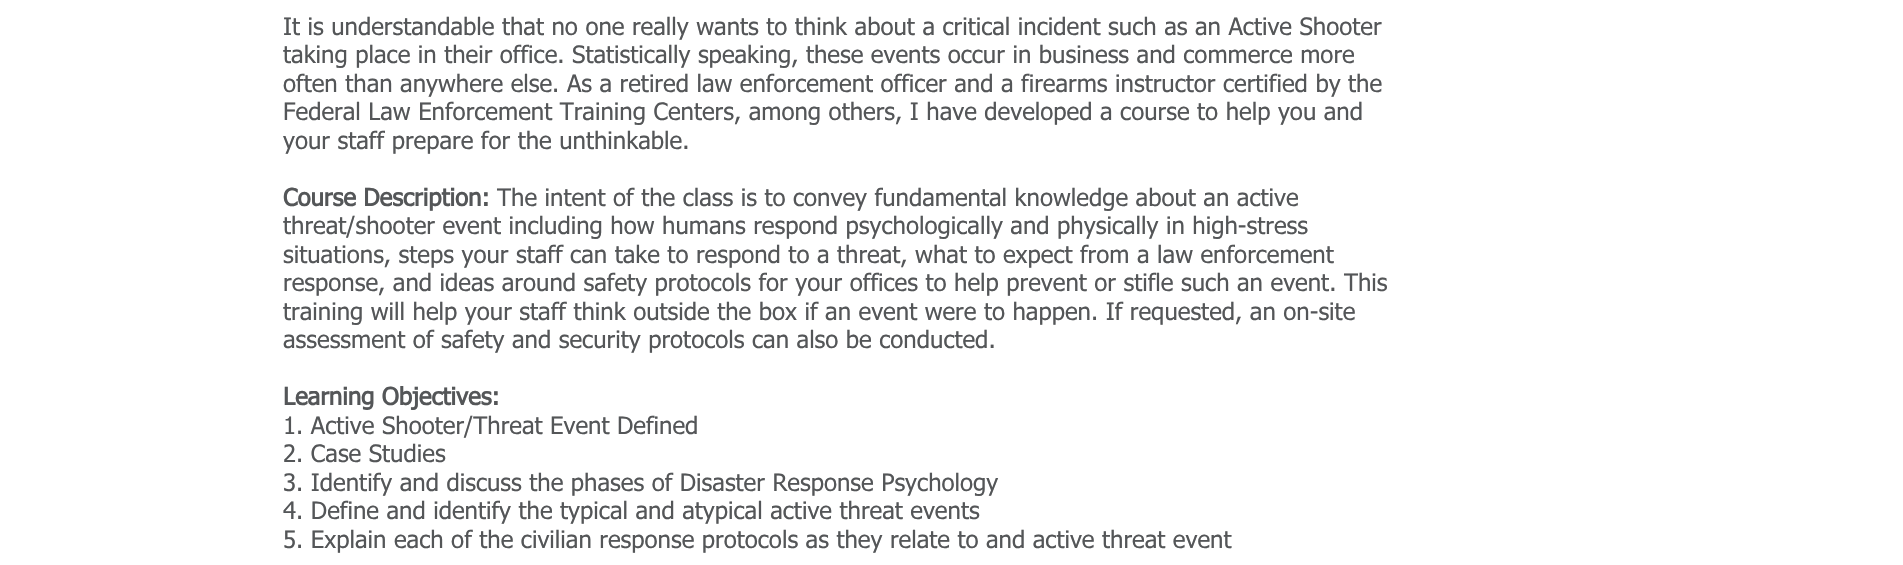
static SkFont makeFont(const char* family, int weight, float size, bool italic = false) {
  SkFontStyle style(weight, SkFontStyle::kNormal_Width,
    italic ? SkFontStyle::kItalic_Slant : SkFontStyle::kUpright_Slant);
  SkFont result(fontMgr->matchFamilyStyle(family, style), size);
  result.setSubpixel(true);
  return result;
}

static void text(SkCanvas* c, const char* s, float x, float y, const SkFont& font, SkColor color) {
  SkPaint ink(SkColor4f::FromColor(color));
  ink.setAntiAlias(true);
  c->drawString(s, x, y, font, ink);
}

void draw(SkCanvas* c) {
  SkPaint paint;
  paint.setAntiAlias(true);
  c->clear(0xffffffff);
  SkFont face1 = makeFont("tahoma", 400, 24);
  text(c, "It is understandable that no one really wants to think about a critical incident such as an Active Shooter", 283, 35, face1, 0xff545658);
  text(c, "taking place in their office. Statistically speaking, these events occur in business and commerce more", 283, 63, face1, 0xff545658);
  text(c, "often than anywhere else. As a retired law enforcement officer and a firearms instructor certified by the", 283, 92, face1, 0xff545658);
  text(c, "Federal Law Enforcement Training Centers, among others, I have developed a course to help you and", 283, 120, face1, 0xff545658);
  text(c, "your staff prepare for the unthinkable.", 283, 149, face1, 0xff545658);
  SkFont face2 = makeFont("tahoma", 700, 24);
  text(c, "Course Description:", 283, 206, face2, 0xff545658);
  text(c, "The intent of the class is to convey fundamental knowledge about an active", 497, 206, face1, 0xff545658);
  text(c, "threat/shooter event including how humans respond psychologically and physically in high-stress", 283, 234, face1, 0xff545658);
  text(c, "situations, steps your staff can take to respond to a threat, what to expect from a law enforcement", 283, 263, face1, 0xff545658);
  text(c, "response, and ideas around safety protocols for your offices to help prevent or stifle such an event. This", 283, 291, face1, 0xff545658);
  text(c, "training will help your staff think outside the box if an event were to happen. If requested, an on-site", 283, 320, face1, 0xff545658);
  text(c, "assessment of safety and security protocols can also be conducted.", 283, 348, face1, 0xff545658);
  text(c, "Learning Objectives:", 283, 405, face2, 0xff545658);
  text(c, "1. Active Shooter/Threat Event Defined", 283, 434, face1, 0xff545658);
  text(c, "2. Case Studies", 283, 462, face1, 0xff545658);
  text(c, "3. Identify and discuss the phases of Disaster Response Psychology", 283, 491, face1, 0xff545658);
  text(c, "4. Define and identify the typical and atypical active threat events", 283, 519, face1, 0xff545658);
  text(c, "5. Explain each of the civilian response protocols as they relate to and active threat event", 283, 548, face1, 0xff545658);
}
